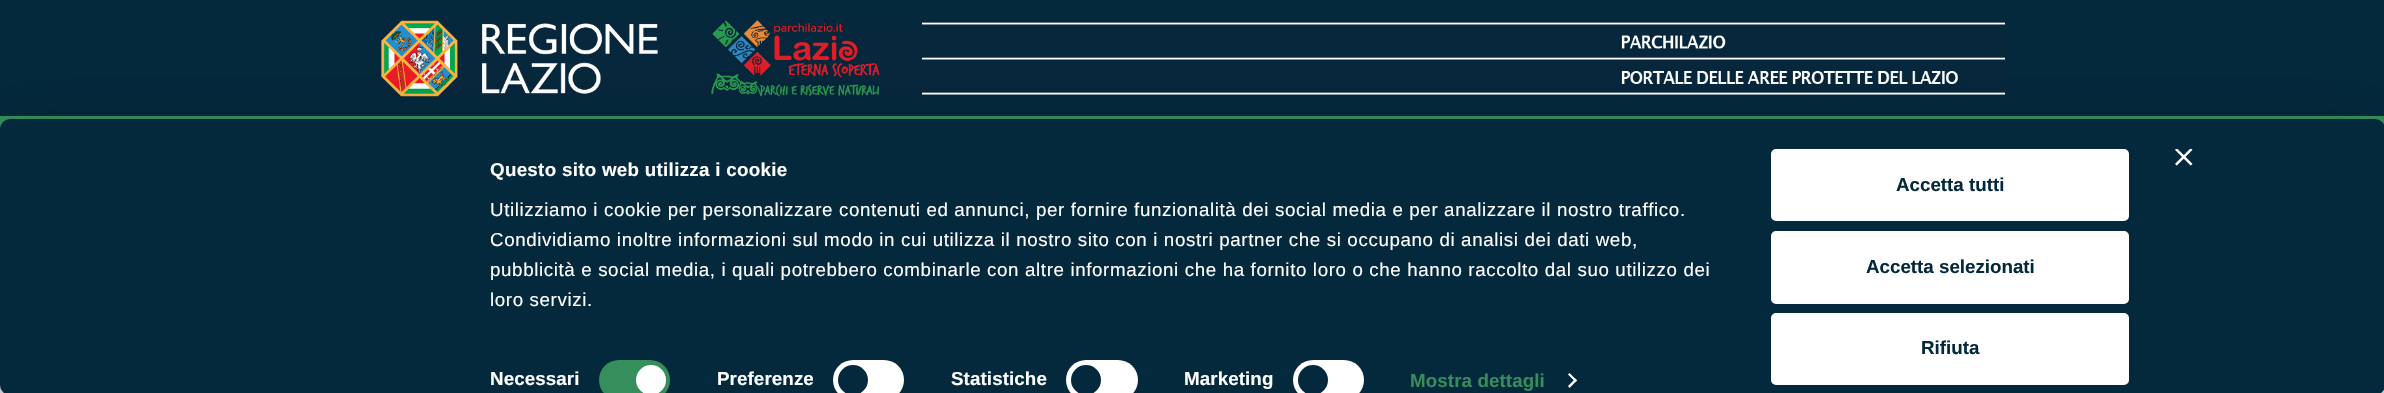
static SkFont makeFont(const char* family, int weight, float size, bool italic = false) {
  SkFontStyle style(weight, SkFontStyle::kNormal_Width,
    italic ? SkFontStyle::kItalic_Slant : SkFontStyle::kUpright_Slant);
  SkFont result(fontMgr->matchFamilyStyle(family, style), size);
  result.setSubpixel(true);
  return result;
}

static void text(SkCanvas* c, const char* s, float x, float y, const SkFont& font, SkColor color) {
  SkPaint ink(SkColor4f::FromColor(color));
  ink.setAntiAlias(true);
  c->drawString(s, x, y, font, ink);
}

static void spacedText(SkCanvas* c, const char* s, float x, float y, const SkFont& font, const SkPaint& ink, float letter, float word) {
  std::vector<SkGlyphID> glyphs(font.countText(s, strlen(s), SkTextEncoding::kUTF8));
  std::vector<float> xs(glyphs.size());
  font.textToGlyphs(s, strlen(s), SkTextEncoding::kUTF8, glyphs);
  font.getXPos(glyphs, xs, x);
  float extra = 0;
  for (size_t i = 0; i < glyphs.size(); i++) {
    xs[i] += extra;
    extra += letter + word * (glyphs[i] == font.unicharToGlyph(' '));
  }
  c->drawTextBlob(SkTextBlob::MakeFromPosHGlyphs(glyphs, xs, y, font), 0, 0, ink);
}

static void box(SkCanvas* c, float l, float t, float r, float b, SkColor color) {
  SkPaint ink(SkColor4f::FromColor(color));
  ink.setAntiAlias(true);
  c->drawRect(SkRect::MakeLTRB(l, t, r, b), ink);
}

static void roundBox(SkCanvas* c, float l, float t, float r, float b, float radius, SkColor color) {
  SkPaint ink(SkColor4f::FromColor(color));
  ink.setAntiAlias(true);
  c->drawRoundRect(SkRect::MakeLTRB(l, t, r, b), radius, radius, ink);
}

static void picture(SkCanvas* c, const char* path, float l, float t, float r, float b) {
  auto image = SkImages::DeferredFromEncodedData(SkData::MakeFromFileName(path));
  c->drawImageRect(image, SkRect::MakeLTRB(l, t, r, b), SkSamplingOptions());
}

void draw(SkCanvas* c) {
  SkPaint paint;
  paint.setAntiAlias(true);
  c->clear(0xffe6eaec);
  box(c, 0, 0, 2384, 116, 0xff04283c);
  picture(c, "img_01.png", 381, 20, 2005, 97);
  box(c, 0, 116, 2384, 129, 0xff358e5c);
  paint.setColor(0x4d000000);
  paint.setMaskFilter(SkMaskFilter::MakeBlur(kNormal_SkBlurStyle, 44));
  c->drawRoundRect(SkRect::MakeLTRB(0, 156, 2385, 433), 10, 10, paint);
  paint.setMaskFilter(nullptr);
  roundBox(c, 0, 119, 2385, 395, 10, 0xff04283c);
  picture(c, "img_02.png", 2175, 149, 2193, 166);
  SkFont face1 = makeFont("Liberation Sans", 700, 18.75f);
  paint.setColor(0xffffffff);
  spacedText(c, "Questo sito web utilizza i cookie", 490, 176, face1, paint, 0.3f, 0);
  SkFont face2 = makeFont("Liberation Sans", 400, 18.75f);
  spacedText(c, "Utilizziamo i cookie per personalizzare contenuti ed annunci, per fornire funzionalità dei social media e per analizzare il nostro traffico.", 490, 216, face2, paint, 0.62f, 0);
  spacedText(c, "Condividiamo inoltre informazioni sul modo in cui utilizza il nostro sito con i nostri partner che si occupano di analisi dei dati web,", 490, 246, face2, paint, 0.62f, 0);
  spacedText(c, "pubblicità e social media, i quali potrebbero combinarle con altre informazioni che ha fornito loro o che hanno raccolto dal suo utilizzo dei", 490, 276, face2, paint, 0.62f, 0);
  spacedText(c, "loro servizi.", 490, 306, face2, paint, 0.62f, 0);
  spacedText(c, "Necessari", 490, 385, face1, paint, 0.1f, 0);
  roundBox(c, 599, 360, 670, 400, 20, 0xff358e5c);
  c->drawCircle(651, 380, 15, paint);
  spacedText(c, "Preferenze", 717, 385, face1, paint, 0.1f, 0);
  roundBox(c, 833, 360, 904, 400, 20, 0xffffffff);
  paint.setColor(0xff04283c);
  c->drawCircle(853, 380, 15, paint);
  paint.setColor(0xffffffff);
  spacedText(c, "Statistiche", 951, 385, face1, paint, 0.1f, 0);
  roundBox(c, 1066, 360, 1138, 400, 20, 0xffffffff);
  paint.setColor(0xff04283c);
  c->drawCircle(1086, 380, 15, paint);
  paint.setColor(0xffffffff);
  spacedText(c, "Marketing", 1184, 385, face1, paint, 0.1f, 0);
  roundBox(c, 1293, 360, 1364, 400, 20, 0xffffffff);
  paint.setColor(0xff04283c);
  c->drawCircle(1313, 380, 15, paint);
  paint.setColor(0xff358e5c);
  spacedText(c, "Mostra dettagli", 1410, 387, face1, paint, 0.1f, 0);
  paint.setColor(0xffffffff);
  c->drawPath(SkPathBuilder().moveTo(1569.5f, 373).lineTo(1577, 380.5f).lineTo(1575.5f, 382).lineTo(1568, 374.5f).close().detach(), paint);
  c->drawPath(SkPathBuilder().moveTo(1575.5f, 378.5f).lineTo(1577, 380.5f).lineTo(1569.5f, 388).lineTo(1568, 386).close().detach(), paint);
  c->drawRoundRect(SkRect::MakeLTRB(1772.5f, 150.5f, 2127.5f, 219.5f), 3.5f, 3.5f, paint);
  paint.setStyle(SkPaint::kStroke_Style);
  paint.setStrokeWidth(3);
  c->drawRoundRect(SkRect::MakeLTRB(1772.5f, 150.5f, 2127.5f, 219.5f), 3.5f, 3.5f, paint);
  text(c, "Accetta tutti", 1896, 191, face1, 0xff04283c);
  paint.setStyle(SkPaint::kFill_Style);
  c->drawRoundRect(SkRect::MakeLTRB(1772.5f, 232.5f, 2127.5f, 302.5f), 3.5f, 3.5f, paint);
  paint.setStyle(SkPaint::kStroke_Style);
  c->drawRoundRect(SkRect::MakeLTRB(1772.5f, 232.5f, 2127.5f, 302.5f), 3.5f, 3.5f, paint);
  text(c, "Accetta selezionati", 1866, 273, face1, 0xff04283c);
  paint.setStyle(SkPaint::kFill_Style);
  c->drawRoundRect(SkRect::MakeLTRB(1772.5f, 314.5f, 2127.5f, 383.5f), 3.5f, 3.5f, paint);
  paint.setStyle(SkPaint::kStroke_Style);
  c->drawRoundRect(SkRect::MakeLTRB(1772.5f, 314.5f, 2127.5f, 383.5f), 3.5f, 3.5f, paint);
  text(c, "Rifiuta", 1921, 354, face1, 0xff04283c);
}
